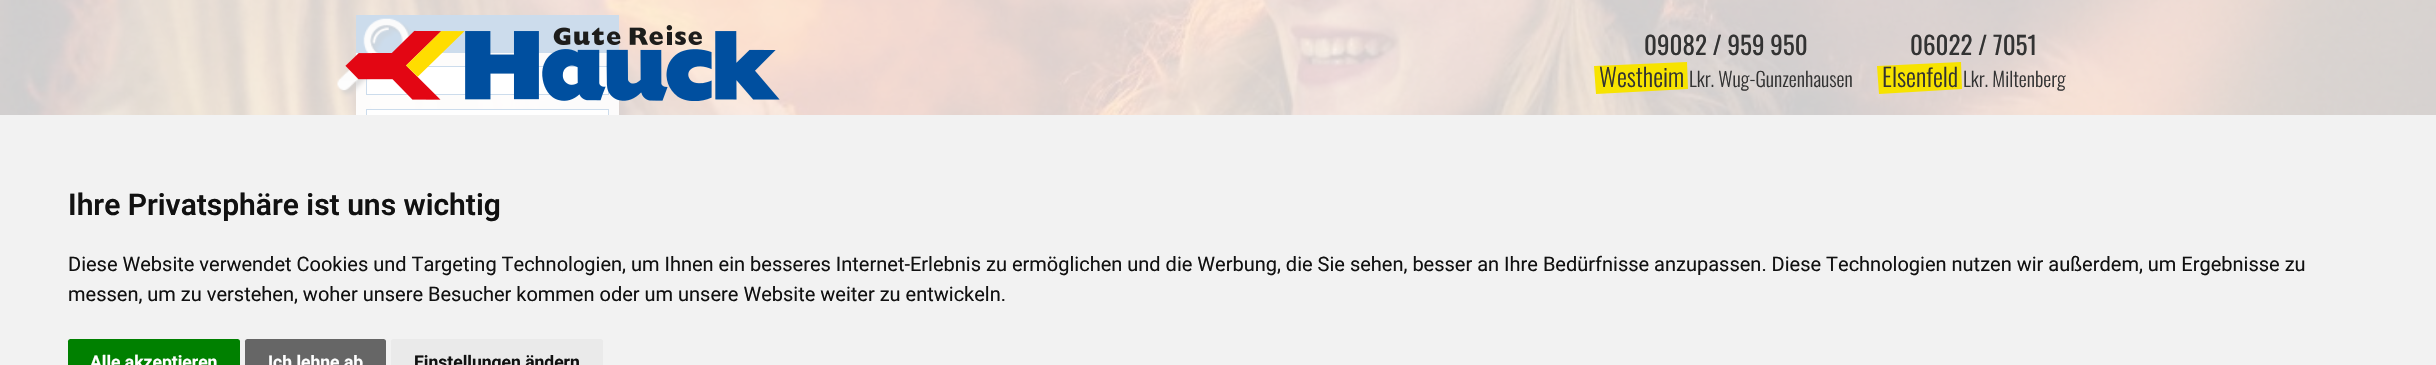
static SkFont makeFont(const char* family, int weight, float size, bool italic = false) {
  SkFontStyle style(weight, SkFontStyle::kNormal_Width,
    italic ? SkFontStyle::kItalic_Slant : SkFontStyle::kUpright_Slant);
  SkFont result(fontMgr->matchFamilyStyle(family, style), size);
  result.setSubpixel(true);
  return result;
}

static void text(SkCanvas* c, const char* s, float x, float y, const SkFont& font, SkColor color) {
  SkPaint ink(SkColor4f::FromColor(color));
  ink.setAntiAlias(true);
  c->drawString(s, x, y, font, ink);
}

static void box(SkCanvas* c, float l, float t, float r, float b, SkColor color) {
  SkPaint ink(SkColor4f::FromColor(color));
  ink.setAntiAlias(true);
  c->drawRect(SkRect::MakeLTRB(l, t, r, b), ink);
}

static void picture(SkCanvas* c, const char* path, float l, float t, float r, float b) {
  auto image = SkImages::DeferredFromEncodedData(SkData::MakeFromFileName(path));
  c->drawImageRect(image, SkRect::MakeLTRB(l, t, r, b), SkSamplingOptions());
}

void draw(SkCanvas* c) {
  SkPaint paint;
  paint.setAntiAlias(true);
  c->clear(0xffffffff);
  picture(c, "img_01.png", 0, 0, 2436, 115);
  box(c, 356, 53, 619, 115, 0xe6ffffff);
  box(c, 356, 15, 619, 53, 0xff004f9f);
  paint.setColor(0xffffffff);
  c->drawRect(SkRect::MakeLTRB(366.5f, 66.5f, 608.5f, 94.5f), paint);
  paint.setStyle(SkPaint::kStroke_Style);
  paint.setStrokeWidth(1);
  paint.setColor(0xff004f9f);
  c->drawRect(SkRect::MakeLTRB(366.5f, 66.5f, 608.5f, 94.5f), paint);
  picture(c, "img_02.png", 337, 18, 414, 97);
  box(c, 367, 110, 608, 115, 0xffffffff);
  c->drawRect(SkRect::MakeLTRB(366.5f, 109.5f, 608.5f, 137.5f), paint);
  box(c, 0, 0, 2436, 115, 0xccffffff);
  picture(c, "img_03.png", 345, 25, 780, 101);
  SkFont face1 = makeFont("Oswald", 400, 25);
  text(c, "09082 / 959 950", 1644, 55, face1, 0xff333333);
  paint.setStyle(SkPaint::kFill_Style);
  paint.setColor(0xfff7e300);
  c->drawPath(SkPathBuilder().moveTo(1594, 66).lineTo(1687, 62).lineTo(1688, 89).lineTo(1596, 94).close().detach(), paint);
  SkFont face2 = makeFont("Oswald", 300, 25);
  text(c, "Westheim", 1599, 87, face2, 0xff333333);
  SkFont face3 = makeFont("Oswald", 300, 20);
  text(c, "Lkr. Wug-Gunzenhausen", 1689, 87, face3, 0xff333333);
  text(c, "06022 / 7051", 1910, 55, face1, 0xff333333);
  c->drawPath(SkPathBuilder().moveTo(1877, 66).lineTo(1961, 62).lineTo(1962, 89).lineTo(1879, 94).close().detach(), paint);
  text(c, "Elsenfeld", 1882, 87, face2, 0xff333333);
  text(c, "Lkr. Miltenberg", 1963, 87, face3, 0xff333333);
  box(c, 0, 115, 2436, 365, 0xfff2f2f2);
  SkFont face4 = makeFont("Roboto", 600, 30);
  text(c, "Ihre Privatsphäre ist uns wichtig", 68, 215, face4, 0xff111111);
  SkFont face5 = makeFont("Roboto", 400, 20);
  text(c, "Diese Website verwendet Cookies und Targeting Technologien, um Ihnen ein besseres Internet-Erlebnis zu ermöglichen und die Werbung, die Sie sehen, besser an Ihre Bedürfnisse anzupassen. Diese Technologien nutzen wir außerdem, um Ergebnisse zu", 68, 271, face5, 0xff111111);
  text(c, "messen, um zu verstehen, woher unsere Besucher kommen oder um unsere Website weiter zu entwickeln.", 68, 301, face5, 0xff111111);
  paint.setColor(0xff008000);
  c->drawPath(SkPathBuilder().moveTo(70.5f, 339).lineTo(237.5f, 339).cubicTo(239, 339, 240, 340, 240, 341.5f).lineTo(240, 365).lineTo(68, 365).lineTo(68, 341.5f).cubicTo(68, 340, 69, 339, 70.5f, 339).close().detach(), paint);
  SkFont face6 = makeFont("Roboto", 700, 17.5f);
  text(c, "Alle akzeptieren", 90, 368, face6, 0xffffffff);
  paint.setColor(0xff666666);
  c->drawPath(SkPathBuilder().moveTo(247.5f, 339).lineTo(383.5f, 339).cubicTo(385, 339, 386, 340, 386, 341.5f).lineTo(386, 365).lineTo(245, 365).lineTo(245, 341.5f).cubicTo(245, 340, 246, 339, 247.5f, 339).close().detach(), paint);
  text(c, "Ich lehne ab", 268, 368, face6, 0xffffffff);
  paint.setColor(0xffeaeaea);
  c->drawPath(SkPathBuilder().moveTo(393.5f, 339).lineTo(600.5f, 339).cubicTo(602, 339, 603, 340, 603, 341.5f).lineTo(603, 365).lineTo(391, 365).lineTo(391, 341.5f).cubicTo(391, 340, 392, 339, 393.5f, 339).close().detach(), paint);
  text(c, "Einstellungen ändern", 414, 368, face6, 0xff111111);
}
